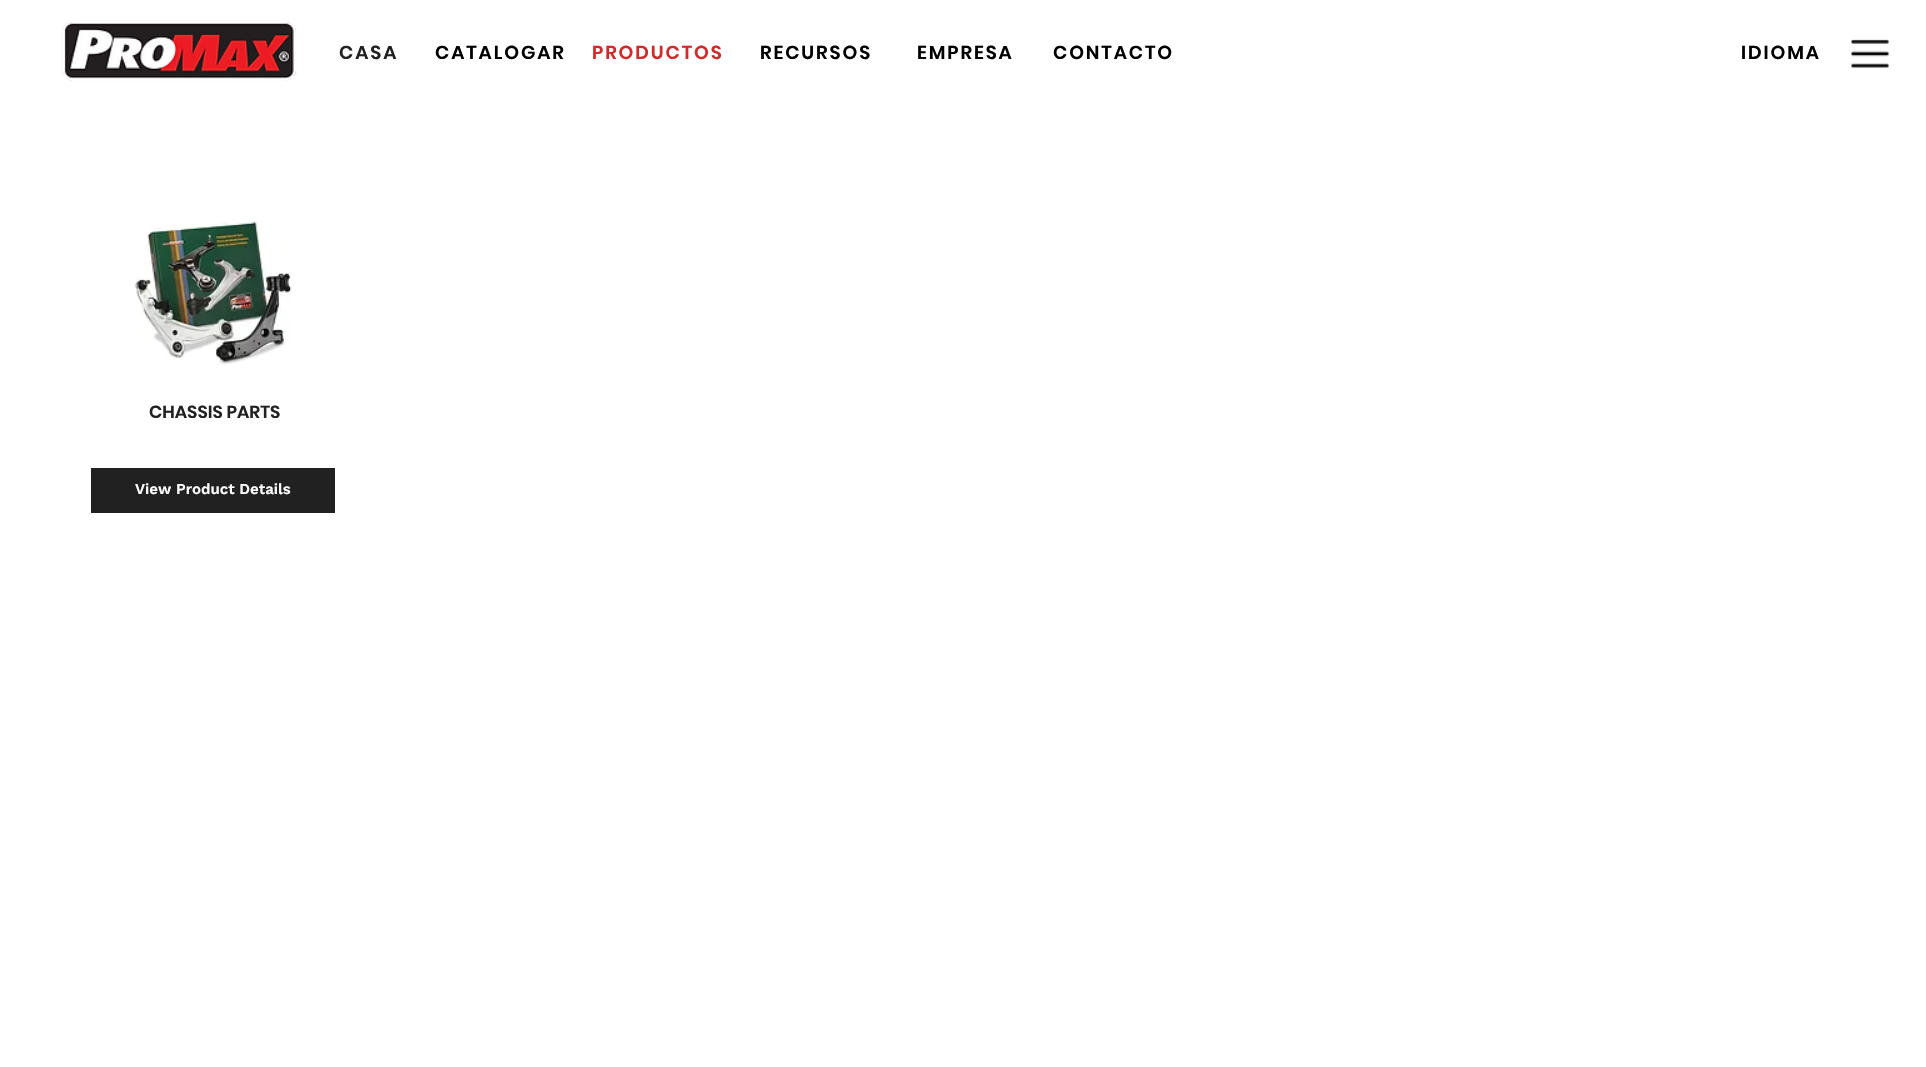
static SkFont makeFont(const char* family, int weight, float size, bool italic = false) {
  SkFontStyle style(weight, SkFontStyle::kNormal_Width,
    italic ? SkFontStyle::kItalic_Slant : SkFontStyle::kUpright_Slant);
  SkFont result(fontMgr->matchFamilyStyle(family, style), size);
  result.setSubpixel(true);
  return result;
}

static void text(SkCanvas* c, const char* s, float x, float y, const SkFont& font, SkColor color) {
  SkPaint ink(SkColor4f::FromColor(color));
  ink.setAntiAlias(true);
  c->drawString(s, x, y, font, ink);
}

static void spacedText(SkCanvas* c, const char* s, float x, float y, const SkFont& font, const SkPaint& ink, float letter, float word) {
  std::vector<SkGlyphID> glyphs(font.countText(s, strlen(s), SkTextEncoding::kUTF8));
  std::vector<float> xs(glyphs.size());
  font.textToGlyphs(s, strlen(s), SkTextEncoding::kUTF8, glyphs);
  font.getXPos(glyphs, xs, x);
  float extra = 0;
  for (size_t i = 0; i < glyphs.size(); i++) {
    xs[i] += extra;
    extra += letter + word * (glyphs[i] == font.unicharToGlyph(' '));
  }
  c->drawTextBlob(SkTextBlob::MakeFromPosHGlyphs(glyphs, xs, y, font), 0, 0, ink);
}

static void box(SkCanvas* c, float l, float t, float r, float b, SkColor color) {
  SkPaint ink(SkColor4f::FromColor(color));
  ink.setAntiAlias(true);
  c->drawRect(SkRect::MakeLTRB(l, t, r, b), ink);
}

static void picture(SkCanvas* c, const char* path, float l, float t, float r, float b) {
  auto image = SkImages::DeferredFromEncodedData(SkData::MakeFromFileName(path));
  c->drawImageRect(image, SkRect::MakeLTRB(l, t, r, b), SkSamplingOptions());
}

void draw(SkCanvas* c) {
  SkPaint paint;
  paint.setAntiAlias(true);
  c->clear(0xffffffff);
  picture(c, "img_01.png", 61, 21, 297, 82);
  SkFont face1 = makeFont("Poppins", 600, 18.75f);
  paint.setColor(0xff212121);
  spacedText(c, "CASA", 339, 59, face1, paint, 1.9f, 0);
  paint.setColor(0xff000000);
  spacedText(c, "CATALOGAR", 435, 59, face1, paint, 1.9f, 0);
  paint.setColor(0xffcf2b2b);
  spacedText(c, "PRODUCTOS", 592, 59, face1, paint, 1.9f, 0);
  paint.setColor(0xff000000);
  spacedText(c, "RECURSOS", 760, 59, face1, paint, 1.9f, 0);
  spacedText(c, "EMPRESA", 917, 59, face1, paint, 1.9f, 0);
  spacedText(c, "CONTACTO", 1053, 59, face1, paint, 1.9f, 0);
  spacedText(c, "IDIOMA", 1741, 59, face1, paint, 1.9f, 0);
  picture(c, "img_02.png", 1851, 39, 1889, 68);
  picture(c, "img_03.png", 134, 221, 292, 365);
  SkFont face2 = makeFont("Poppins", 600, 17.5f);
  text(c, "CHASSIS PARTS", 149, 418, face2, 0xff212121);
  box(c, 91, 468, 335, 513, 0xff212121);
  SkFont face3 = makeFont("Work Sans", 600, 15);
  text(c, "View Product Details", 135, 494, face3, 0xffffffff);
}
